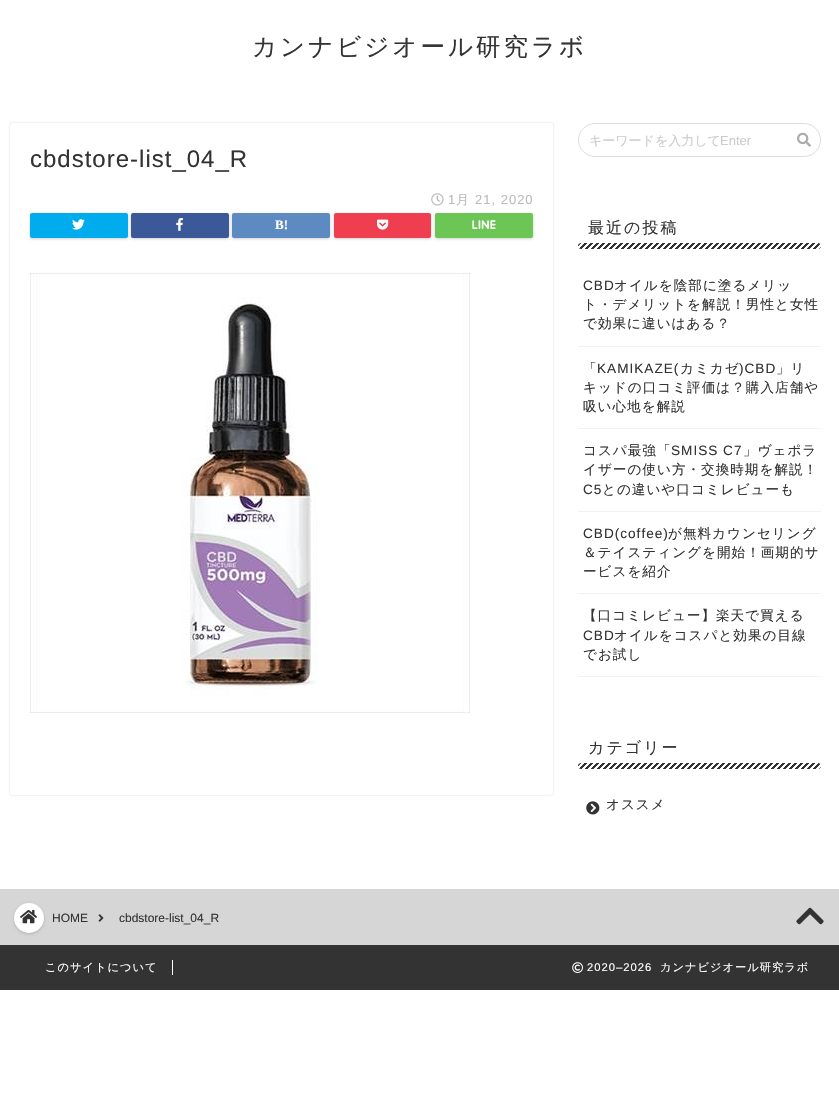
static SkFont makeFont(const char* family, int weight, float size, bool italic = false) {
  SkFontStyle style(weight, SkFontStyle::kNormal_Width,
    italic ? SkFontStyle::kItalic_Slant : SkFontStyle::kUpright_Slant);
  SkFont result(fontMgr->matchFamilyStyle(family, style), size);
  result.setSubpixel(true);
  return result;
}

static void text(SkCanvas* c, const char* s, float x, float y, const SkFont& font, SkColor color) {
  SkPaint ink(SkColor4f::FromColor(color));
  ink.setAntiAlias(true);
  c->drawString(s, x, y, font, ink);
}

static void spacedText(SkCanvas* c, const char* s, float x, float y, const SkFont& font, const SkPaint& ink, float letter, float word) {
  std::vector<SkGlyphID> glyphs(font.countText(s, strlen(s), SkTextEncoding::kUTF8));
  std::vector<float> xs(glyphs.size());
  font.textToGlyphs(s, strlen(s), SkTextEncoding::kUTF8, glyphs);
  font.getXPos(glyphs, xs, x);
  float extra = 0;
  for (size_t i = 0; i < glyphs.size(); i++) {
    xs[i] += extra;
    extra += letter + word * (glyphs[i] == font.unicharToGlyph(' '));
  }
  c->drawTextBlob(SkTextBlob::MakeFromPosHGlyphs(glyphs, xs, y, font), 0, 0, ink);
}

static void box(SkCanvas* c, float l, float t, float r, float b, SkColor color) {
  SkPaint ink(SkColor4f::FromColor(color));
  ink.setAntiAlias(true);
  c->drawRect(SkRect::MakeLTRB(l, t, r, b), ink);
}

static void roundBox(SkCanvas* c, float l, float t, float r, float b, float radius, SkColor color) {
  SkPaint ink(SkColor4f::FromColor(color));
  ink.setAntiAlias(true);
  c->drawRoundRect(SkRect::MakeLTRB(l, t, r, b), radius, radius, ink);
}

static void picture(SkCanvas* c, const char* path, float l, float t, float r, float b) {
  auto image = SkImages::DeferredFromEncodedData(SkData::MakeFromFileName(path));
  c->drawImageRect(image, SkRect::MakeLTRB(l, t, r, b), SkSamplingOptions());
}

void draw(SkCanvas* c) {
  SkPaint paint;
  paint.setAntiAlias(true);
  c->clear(0xffffffff);
  SkFont face1 = makeFont("WenQuanYi Zen Hei", 500, 24.5f);
  paint.setColor(0xff333333);
  spacedText(c, "カンナビジオール研究ラボ", 252, 55, face1, paint, 3, 0);
  paint.setColor(0x2e000000);
  paint.setMaskFilter(SkMaskFilter::MakeBlur(kNormal_SkBlurStyle, 1));
  c->drawRoundRect(SkRect::MakeLTRB(10, 123, 553, 795), 2, 2, paint);
  paint.setMaskFilter(nullptr);
  roundBox(c, 10, 123, 553, 795, 2, 0xffffffff);
  SkFont face2 = makeFont("Liberation Sans", 400, 24);
  paint.setColor(0xff333333);
  spacedText(c, "cbdstore-list_04_R", 30, 167, face2, paint, 1, 0);
  picture(c, "img_01.png", 431, 193, 444, 206);
  SkFont face3 = makeFont("Liberation Sans", 400, 13);
  paint.setColor(0xffbbbbbb);
  spacedText(c, "1", 448, 204, face3, paint, 1, 0);
  SkFont face4 = makeFont("WenQuanYi Zen Hei", 500, 13);
  spacedText(c, "月", 456, 204, face4, paint, 1, 0);
  spacedText(c, "21, 2020", 475, 204, face3, paint, 1, 0);
  paint.setColor(0x2e000000);
  paint.setMaskFilter(SkMaskFilter::MakeBlur(kNormal_SkBlurStyle, 1.5f));
  c->drawRoundRect(SkRect::MakeLTRB(30, 214, 128, 239), 2, 2, paint);
  paint.setMaskFilter(nullptr);
  paint.setColor(0xff00acee);
  c->drawRoundRect(SkRect::MakeLTRB(31, 214, 127, 237), 1, 1, paint);
  paint.setStyle(SkPaint::kStroke_Style);
  paint.setStrokeWidth(2);
  c->drawRoundRect(SkRect::MakeLTRB(31, 214, 127, 237), 1, 1, paint);
  picture(c, "img_02.png", 72, 219, 85, 230);
  paint.setStyle(SkPaint::kFill_Style);
  paint.setColor(0x2e000000);
  paint.setMaskFilter(SkMaskFilter::MakeBlur(kNormal_SkBlurStyle, 1.5f));
  c->drawRoundRect(SkRect::MakeLTRB(131, 214, 229, 239), 2, 2, paint);
  paint.setMaskFilter(nullptr);
  paint.setColor(0xff3b5998);
  c->drawRoundRect(SkRect::MakeLTRB(132, 214, 228, 237), 1, 1, paint);
  paint.setStyle(SkPaint::kStroke_Style);
  c->drawRoundRect(SkRect::MakeLTRB(132, 214, 228, 237), 1, 1, paint);
  picture(c, "img_03.png", 176, 218, 183, 231);
  paint.setStyle(SkPaint::kFill_Style);
  paint.setColor(0x2e000000);
  paint.setMaskFilter(SkMaskFilter::MakeBlur(kNormal_SkBlurStyle, 1.5f));
  c->drawRoundRect(SkRect::MakeLTRB(232, 214, 330, 239), 2, 2, paint);
  paint.setMaskFilter(nullptr);
  paint.setColor(0xff5d8ac1);
  c->drawRoundRect(SkRect::MakeLTRB(233, 214, 329, 237), 1, 1, paint);
  paint.setStyle(SkPaint::kStroke_Style);
  c->drawRoundRect(SkRect::MakeLTRB(233, 214, 329, 237), 1, 1, paint);
  SkFont face5 = makeFont("Liberation Serif", 700, 13);
  text(c, "B!", 275, 229, face5, 0xffffffff);
  paint.setStyle(SkPaint::kFill_Style);
  paint.setColor(0x2e000000);
  paint.setMaskFilter(SkMaskFilter::MakeBlur(kNormal_SkBlurStyle, 1.5f));
  c->drawRoundRect(SkRect::MakeLTRB(334, 214, 431, 239), 2, 2, paint);
  paint.setMaskFilter(nullptr);
  paint.setColor(0xfff03e51);
  c->drawRoundRect(SkRect::MakeLTRB(335, 214, 430, 237), 1, 1, paint);
  paint.setStyle(SkPaint::kStroke_Style);
  c->drawRoundRect(SkRect::MakeLTRB(335, 214, 430, 237), 1, 1, paint);
  picture(c, "img_04.png", 377, 219, 389, 230);
  paint.setStyle(SkPaint::kFill_Style);
  paint.setColor(0x2e000000);
  paint.setMaskFilter(SkMaskFilter::MakeBlur(kNormal_SkBlurStyle, 1.5f));
  c->drawRoundRect(SkRect::MakeLTRB(435, 214, 533, 239), 2, 2, paint);
  paint.setMaskFilter(nullptr);
  paint.setColor(0xff6cc655);
  c->drawRoundRect(SkRect::MakeLTRB(436, 214, 532, 237), 1, 1, paint);
  paint.setStyle(SkPaint::kStroke_Style);
  c->drawRoundRect(SkRect::MakeLTRB(436, 214, 532, 237), 1, 1, paint);
  picture(c, "img_05.png", 472, 220, 496, 229);
  picture(c, "img_06.png", 30, 273, 470, 713);
  paint.setStrokeWidth(1);
  paint.setColor(0xffdddddd);
  c->drawRoundRect(SkRect::MakeLTRB(578.5f, 123.5f, 820.5f, 156.5f), 16.5f, 16.5f, paint);
  text(c, "キーワードを入力して", 589, 145, face4, 0xffcccccc);
  text(c, "Enter", 720, 145, face3, 0xffcccccc);
  picture(c, "img_07.png", 797, 132, 811, 147);
  SkFont face6 = makeFont("WenQuanYi Zen Hei", 500, 16);
  paint.setStyle(SkPaint::kFill_Style);
  paint.setColor(0xff333333);
  spacedText(c, "最近の投稿", 588, 233, face6, paint, 2, 0);
  picture(c, "img_08.png", 578, 243, 821, 249);
  box(c, 578, 346, 821, 347, 0xfff2f2f2);
  SkFont face7 = makeFont("Liberation Sans", 400, 13.6f);
  spacedText(c, "CBD", 583, 290, face7, paint, 1, 0);
  SkFont face8 = makeFont("WenQuanYi Zen Hei", 500, 13.6f);
  spacedText(c, "オイルを陰部に塗るメリッ", 614, 290, face8, paint, 1, 0);
  spacedText(c, "ト・デメリットを解説！男性と女性", 583, 309, face8, paint, 1, 0);
  spacedText(c, "で効果に違いはある？", 583, 328, face8, paint, 1, 0);
  box(c, 578, 428, 821, 429, 0xfff2f2f2);
  spacedText(c, "「", 583, 373, face8, paint, 1, 0);
  spacedText(c, "KAMIKAZE(", 597, 373, face7, paint, 1, 0);
  spacedText(c, "カミカゼ", 680, 373, face8, paint, 1, 0);
  spacedText(c, ")CBD", 739, 373, face7, paint, 1, 0);
  spacedText(c, "」リ", 776, 373, face8, paint, 1, 0);
  spacedText(c, "キッドの口コミ評価は？購入店舗や", 583, 392, face8, paint, 1, 0);
  spacedText(c, "吸い心地を解説", 583, 411, face8, paint, 1, 0);
  box(c, 578, 511, 821, 512, 0xfff2f2f2);
  spacedText(c, "コスパ最強「", 583, 455, face8, paint, 1, 0);
  spacedText(c, "SMISS C7", 671, 455, face7, paint, 1, 0);
  spacedText(c, "」ヴェポラ", 743, 455, face8, paint, 1, 0);
  spacedText(c, "イザーの使い方・交換時期を解説！", 583, 474, face8, paint, 1, 0);
  spacedText(c, "C5", 583, 494, face7, paint, 1, 0);
  spacedText(c, "との違いや口コミレビューも", 602, 494, face8, paint, 1, 0);
  box(c, 578, 593, 821, 594, 0xfff2f2f2);
  spacedText(c, "CBD(coffee)", 583, 538, face7, paint, 1, 0);
  spacedText(c, "が無料カウンセリング", 668, 538, face8, paint, 1, 0);
  spacedText(c, "＆テイスティングを開始！画期的サ", 583, 557, face8, paint, 1, 0);
  spacedText(c, "ービスを紹介", 583, 576, face8, paint, 1, 0);
  box(c, 578, 676, 821, 677, 0xfff2f2f2);
  spacedText(c, "【口コミレビュー】楽天で買える", 583, 620, face8, paint, 1, 0);
  spacedText(c, "CBD", 583, 640, face7, paint, 1, 0);
  spacedText(c, "オイルをコスパと効果の目線", 614, 640, face8, paint, 1, 0);
  spacedText(c, "でお試し", 583, 659, face8, paint, 1, 0);
  spacedText(c, "カテゴリー", 588, 753, face6, paint, 2, 0);
  picture(c, "img_08.png", 578, 763, 821, 769);
  picture(c, "img_09.png", 586, 801, 600, 815);
  spacedText(c, "オススメ", 606, 809, face8, paint, 1, 0);
  box(c, 0, 889, 839, 945, 0xffd6d6d6);
  paint.setColor(0x2e000000);
  paint.setMaskFilter(SkMaskFilter::MakeBlur(kNormal_SkBlurStyle, 1.5f));
  c->drawRoundRect(SkRect::MakeLTRB(14, 904, 44, 934), 15, 15, paint);
  paint.setMaskFilter(nullptr);
  paint.setColor(0xffffffff);
  c->drawCircle(29, 918, 15, paint);
  picture(c, "img_10.png", 20, 909, 37, 924);
  SkFont face9 = makeFont("Liberation Sans", 400, 12);
  text(c, "HOME", 52, 922, face9, 0xff333333);
  picture(c, "img_11.png", 98, 914, 104, 922);
  text(c, "cbdstore-list_04_R", 119, 922, face9, 0xff333333);
  picture(c, "img_12.png", 796, 907, 824, 925);
  box(c, 0, 945, 839, 990, 0xff333333);
  box(c, 172, 960, 173, 975, 0xffffffff);
  SkFont face10 = makeFont("WenQuanYi Zen Hei", 500, 11.25f);
  spacedText(c, "このサイトについて", 45, 971, face10, paint, 1, 0);
  picture(c, "img_13.png", 572, 962, 583, 973);
  SkFont face11 = makeFont("Liberation Sans", 400, 11.25f);
  spacedText(c, "2020–2026", 587, 971, face11, paint, 1, 0);
  spacedText(c, "カンナビジオール研究ラボ", 660, 971, face10, paint, 1, 0);
}
